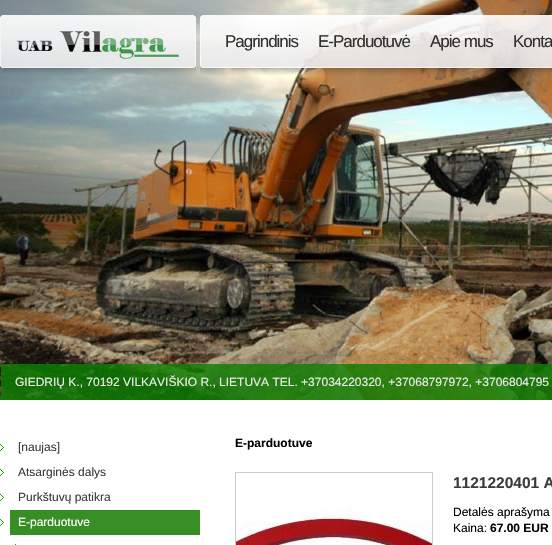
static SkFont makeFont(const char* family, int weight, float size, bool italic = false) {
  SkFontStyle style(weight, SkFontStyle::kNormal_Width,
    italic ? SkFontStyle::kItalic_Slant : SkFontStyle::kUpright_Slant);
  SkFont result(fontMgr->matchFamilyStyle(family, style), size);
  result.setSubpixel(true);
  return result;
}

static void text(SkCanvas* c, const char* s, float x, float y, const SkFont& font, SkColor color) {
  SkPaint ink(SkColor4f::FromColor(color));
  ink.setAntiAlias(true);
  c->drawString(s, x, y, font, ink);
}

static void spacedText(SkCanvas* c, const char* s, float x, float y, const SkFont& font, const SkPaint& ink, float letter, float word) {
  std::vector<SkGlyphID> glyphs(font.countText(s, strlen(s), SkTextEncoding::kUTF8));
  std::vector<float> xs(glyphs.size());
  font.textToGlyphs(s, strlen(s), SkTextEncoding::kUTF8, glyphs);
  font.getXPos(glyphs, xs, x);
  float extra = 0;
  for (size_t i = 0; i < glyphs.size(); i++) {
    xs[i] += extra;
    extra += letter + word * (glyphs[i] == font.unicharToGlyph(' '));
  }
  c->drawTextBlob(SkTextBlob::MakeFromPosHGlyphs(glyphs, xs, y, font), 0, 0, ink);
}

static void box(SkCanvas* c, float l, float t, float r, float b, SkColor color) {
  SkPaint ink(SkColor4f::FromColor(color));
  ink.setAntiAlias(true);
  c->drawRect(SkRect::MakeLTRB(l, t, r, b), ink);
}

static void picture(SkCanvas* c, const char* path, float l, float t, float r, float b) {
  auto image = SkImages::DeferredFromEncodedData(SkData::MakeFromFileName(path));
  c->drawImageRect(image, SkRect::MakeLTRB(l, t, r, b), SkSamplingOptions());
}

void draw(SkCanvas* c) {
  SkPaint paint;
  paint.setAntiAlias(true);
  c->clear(0xffffffff);
  picture(c, "img_01.png", 0, 0, 552, 400);
  box(c, 0, 396, 552, 400, 0xcc0c8000);
  picture(c, "img_02.png", 0, 15, 196, 75);
  picture(c, "img_03.png", 200, 15, 552, 75);
  SkFont face1 = makeFont("Liberation Sans", 400, 17);
  paint.setColor(0xff303030);
  spacedText(c, "Pagrindinis", 225, 47, face1, paint, -1, 0);
  spacedText(c, "E-Parduotuvė", 318, 47, face1, paint, -1, 0);
  spacedText(c, "Apie mus", 430, 47, face1, paint, -1, 0);
  spacedText(c, "Konta", 513, 47, face1, paint, -1, 0);
  box(c, 1, 364, 552, 396, 0xcc0c8000);
  SkFont face2 = makeFont("Liberation Sans", 400, 12);
  text(c, "GIEDRIŲ K., 70192 VILKAVIŠKIO R., LIETUVA TEL. +37034220320, +37068797972, +3706804795", 15, 386, face2, 0xffebebeb);
  picture(c, "img_04.png", 0, 444, 4, 451);
  text(c, "[naujas]", 18, 451, face2, 0xff3c3c3c);
  picture(c, "img_04.png", 0, 469, 4, 476);
  text(c, "Atsarginės dalys", 18, 476, face2, 0xff3c3c3c);
  picture(c, "img_04.png", 0, 494, 4, 501);
  text(c, "Purkštuvų patikra", 18, 501, face2, 0xff3c3c3c);
  picture(c, "img_04.png", 0, 519, 4, 526);
  box(c, 10, 510, 200, 535, 0xff378e25);
  text(c, "E-parduotuve", 18, 526, face2, 0xffffffff);
  box(c, 15, 544, 16, 545, 0xff1fb300);
  SkFont face3 = makeFont("Liberation Sans", 700, 12);
  text(c, "E-parduotuve", 235, 447, face3, 0xff000000);
  paint.setStyle(SkPaint::kStroke_Style);
  paint.setStrokeWidth(1);
  paint.setColor(0xffcccccc);
  c->drawRect(SkRect::MakeLTRB(235.5f, 472.5f, 432.5f, 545.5f), paint);
  picture(c, "img_05.png", 236, 505, 432, 545);
  SkFont face4 = makeFont("Liberation Sans", 700, 15.5f);
  text(c, "1121220401 A", 453, 488, face4, 0xff3c3c3c);
  text(c, "Detalės aprašyma", 453, 516, face2, 0xff000000);
  text(c, "Kaina:", 453, 532, face2, 0xff000000);
  text(c, "67.00 EUR", 490, 532, face3, 0xff000000);
}
